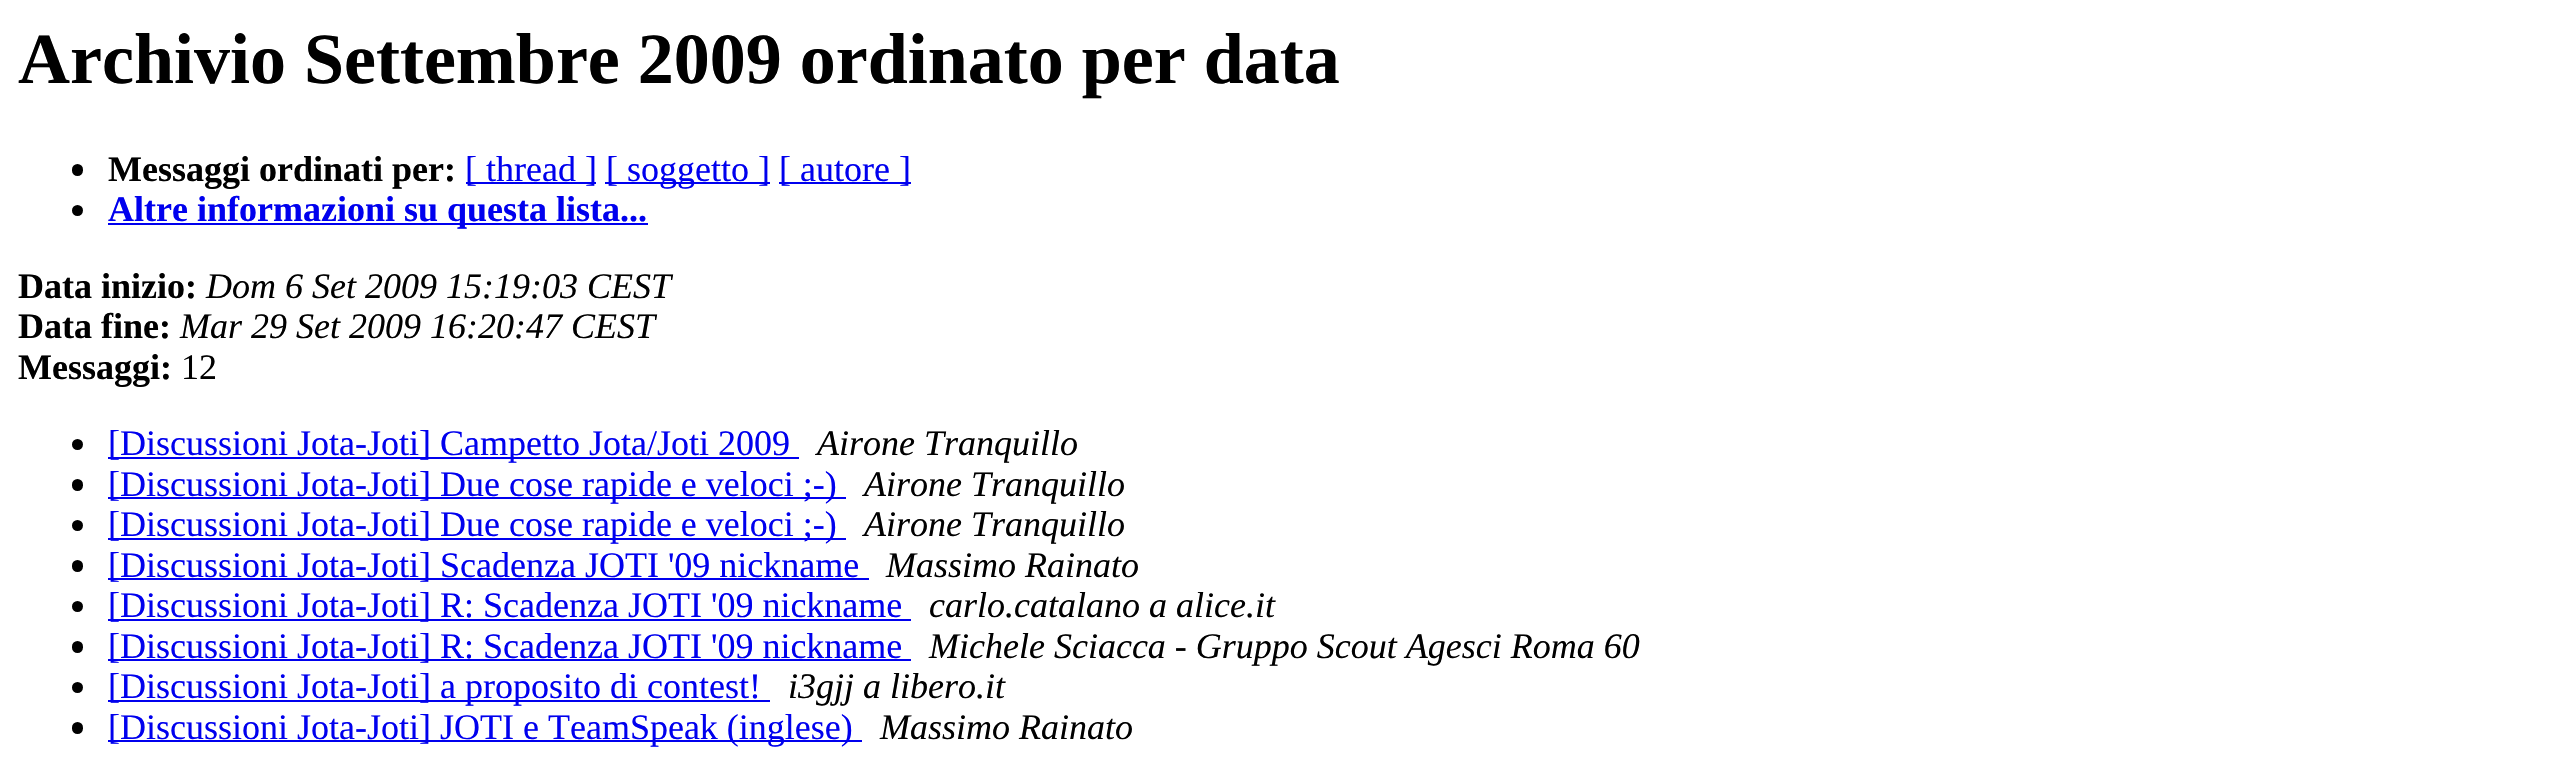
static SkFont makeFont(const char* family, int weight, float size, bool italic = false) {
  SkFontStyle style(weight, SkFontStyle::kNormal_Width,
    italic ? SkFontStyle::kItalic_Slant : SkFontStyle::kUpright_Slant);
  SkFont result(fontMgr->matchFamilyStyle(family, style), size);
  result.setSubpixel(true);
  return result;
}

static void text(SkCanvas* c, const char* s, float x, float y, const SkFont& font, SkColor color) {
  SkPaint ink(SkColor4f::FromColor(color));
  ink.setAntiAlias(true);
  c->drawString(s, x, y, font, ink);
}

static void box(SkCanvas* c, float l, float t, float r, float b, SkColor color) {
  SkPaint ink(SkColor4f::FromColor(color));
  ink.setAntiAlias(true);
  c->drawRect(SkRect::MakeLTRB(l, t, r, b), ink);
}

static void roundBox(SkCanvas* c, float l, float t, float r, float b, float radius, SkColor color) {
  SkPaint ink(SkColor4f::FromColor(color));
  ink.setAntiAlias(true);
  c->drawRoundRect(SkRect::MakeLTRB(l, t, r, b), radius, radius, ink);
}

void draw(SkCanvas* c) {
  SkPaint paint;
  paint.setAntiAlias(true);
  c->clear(0xffffffff);
  SkFont face1 = makeFont("Liberation Serif", 700, 72);
  text(c, "Archivio Settembre 2009 ordinato per data", 18, 83, face1, 0xff000000);
  roundBox(c, 72, 164, 83, 176, 5.5f, 0xff000000);
  SkFont face2 = makeFont("Liberation Serif", 700, 36);
  text(c, "Messaggi ordinati per:", 108, 181, face2, 0xff000000);
  box(c, 466, 182, 596, 184, 0xff0000ee);
  SkFont face3 = makeFont("Liberation Serif", 400, 36);
  text(c, "[ thread ]", 465, 181, face3, 0xff0000ee);
  box(c, 605, 182, 770, 184, 0xff0000ee);
  text(c, "[ soggetto ]", 606, 181, face3, 0xff0000ee);
  box(c, 779, 182, 911, 184, 0xff0000ee);
  text(c, "[ autore ]", 779, 181, face3, 0xff0000ee);
  paint.setColor(0xff000000);
  c->drawCircle(77.5f, 210.5f, 5.5f, paint);
  box(c, 108, 223, 648, 225, 0xff0000ee);
  text(c, "Altre informazioni su questa lista...", 108, 221, face2, 0xff0000ee);
  text(c, "Data inizio:", 18, 298, face2, 0xff000000);
  SkFont face4 = makeFont("Liberation Serif", 400, 36, true);
  text(c, "Dom 6 Set 2009 15:19:03 CEST", 206, 298, face4, 0xff000000);
  text(c, "Data fine:", 18, 338, face2, 0xff000000);
  text(c, "Mar 29 Set 2009 16:20:47 CEST", 180, 338, face4, 0xff000000);
  text(c, "Messaggi:", 18, 379, face2, 0xff000000);
  text(c, "12", 181, 379, face3, 0xff000000);
  c->drawCircle(77.5f, 444.5f, 5.5f, paint);
  box(c, 108, 457, 799, 459, 0xff0000ee);
  text(c, "[Discussioni Jota-Joti] Campetto Jota/Joti 2009", 108, 455, face3, 0xff0000ee);
  text(c, "Airone Tranquillo", 817, 455, face4, 0xff000000);
  roundBox(c, 72, 479, 83, 491, 5.5f, 0xff000000);
  box(c, 108, 497, 846, 499, 0xff0000ee);
  text(c, "[Discussioni Jota-Joti] Due cose rapide e veloci ;-)", 108, 496, face3, 0xff0000ee);
  text(c, "Airone Tranquillo", 864, 496, face4, 0xff000000);
  c->drawCircle(77.5f, 525.5f, 5.5f, paint);
  box(c, 108, 538, 846, 540, 0xff0000ee);
  text(c, "[Discussioni Jota-Joti] Due cose rapide e veloci ;-)", 108, 536, face3, 0xff0000ee);
  text(c, "Airone Tranquillo", 864, 536, face4, 0xff000000);
  roundBox(c, 72, 560, 83, 572, 5.5f, 0xff000000);
  box(c, 108, 578, 869, 580, 0xff0000ee);
  text(c, "[Discussioni Jota-Joti] Scadenza JOTI '09 nickname", 108, 577, face3, 0xff0000ee);
  text(c, "Massimo Rainato", 886, 577, face4, 0xff000000);
  c->drawCircle(77.5f, 606.5f, 5.5f, paint);
  box(c, 108, 619, 911, 621, 0xff0000ee);
  text(c, "[Discussioni Jota-Joti] R: Scadenza JOTI '09 nickname", 108, 617, face3, 0xff0000ee);
  text(c, "carlo.catalano a alice.it", 929, 617, face4, 0xff000000);
  roundBox(c, 72, 641, 83, 653, 5.5f, 0xff000000);
  box(c, 108, 659, 911, 661, 0xff0000ee);
  text(c, "[Discussioni Jota-Joti] R: Scadenza JOTI '09 nickname", 108, 658, face3, 0xff0000ee);
  text(c, "Michele Sciacca - Gruppo Scout Agesci Roma 60", 929, 658, face4, 0xff000000);
  c->drawCircle(77.5f, 687.5f, 5.5f, paint);
  box(c, 108, 700, 770, 702, 0xff0000ee);
  text(c, "[Discussioni Jota-Joti] a proposito di contest!", 108, 698, face3, 0xff0000ee);
  text(c, "i3gjj a libero.it", 788, 698, face4, 0xff000000);
  roundBox(c, 72, 722, 83, 734, 5.5f, 0xff000000);
  box(c, 108, 740, 862, 742, 0xff0000ee);
  text(c, "[Discussioni Jota-Joti] JOTI e TeamSpeak (inglese)", 108, 739, face3, 0xff0000ee);
  text(c, "Massimo Rainato", 880, 739, face4, 0xff000000);
}
